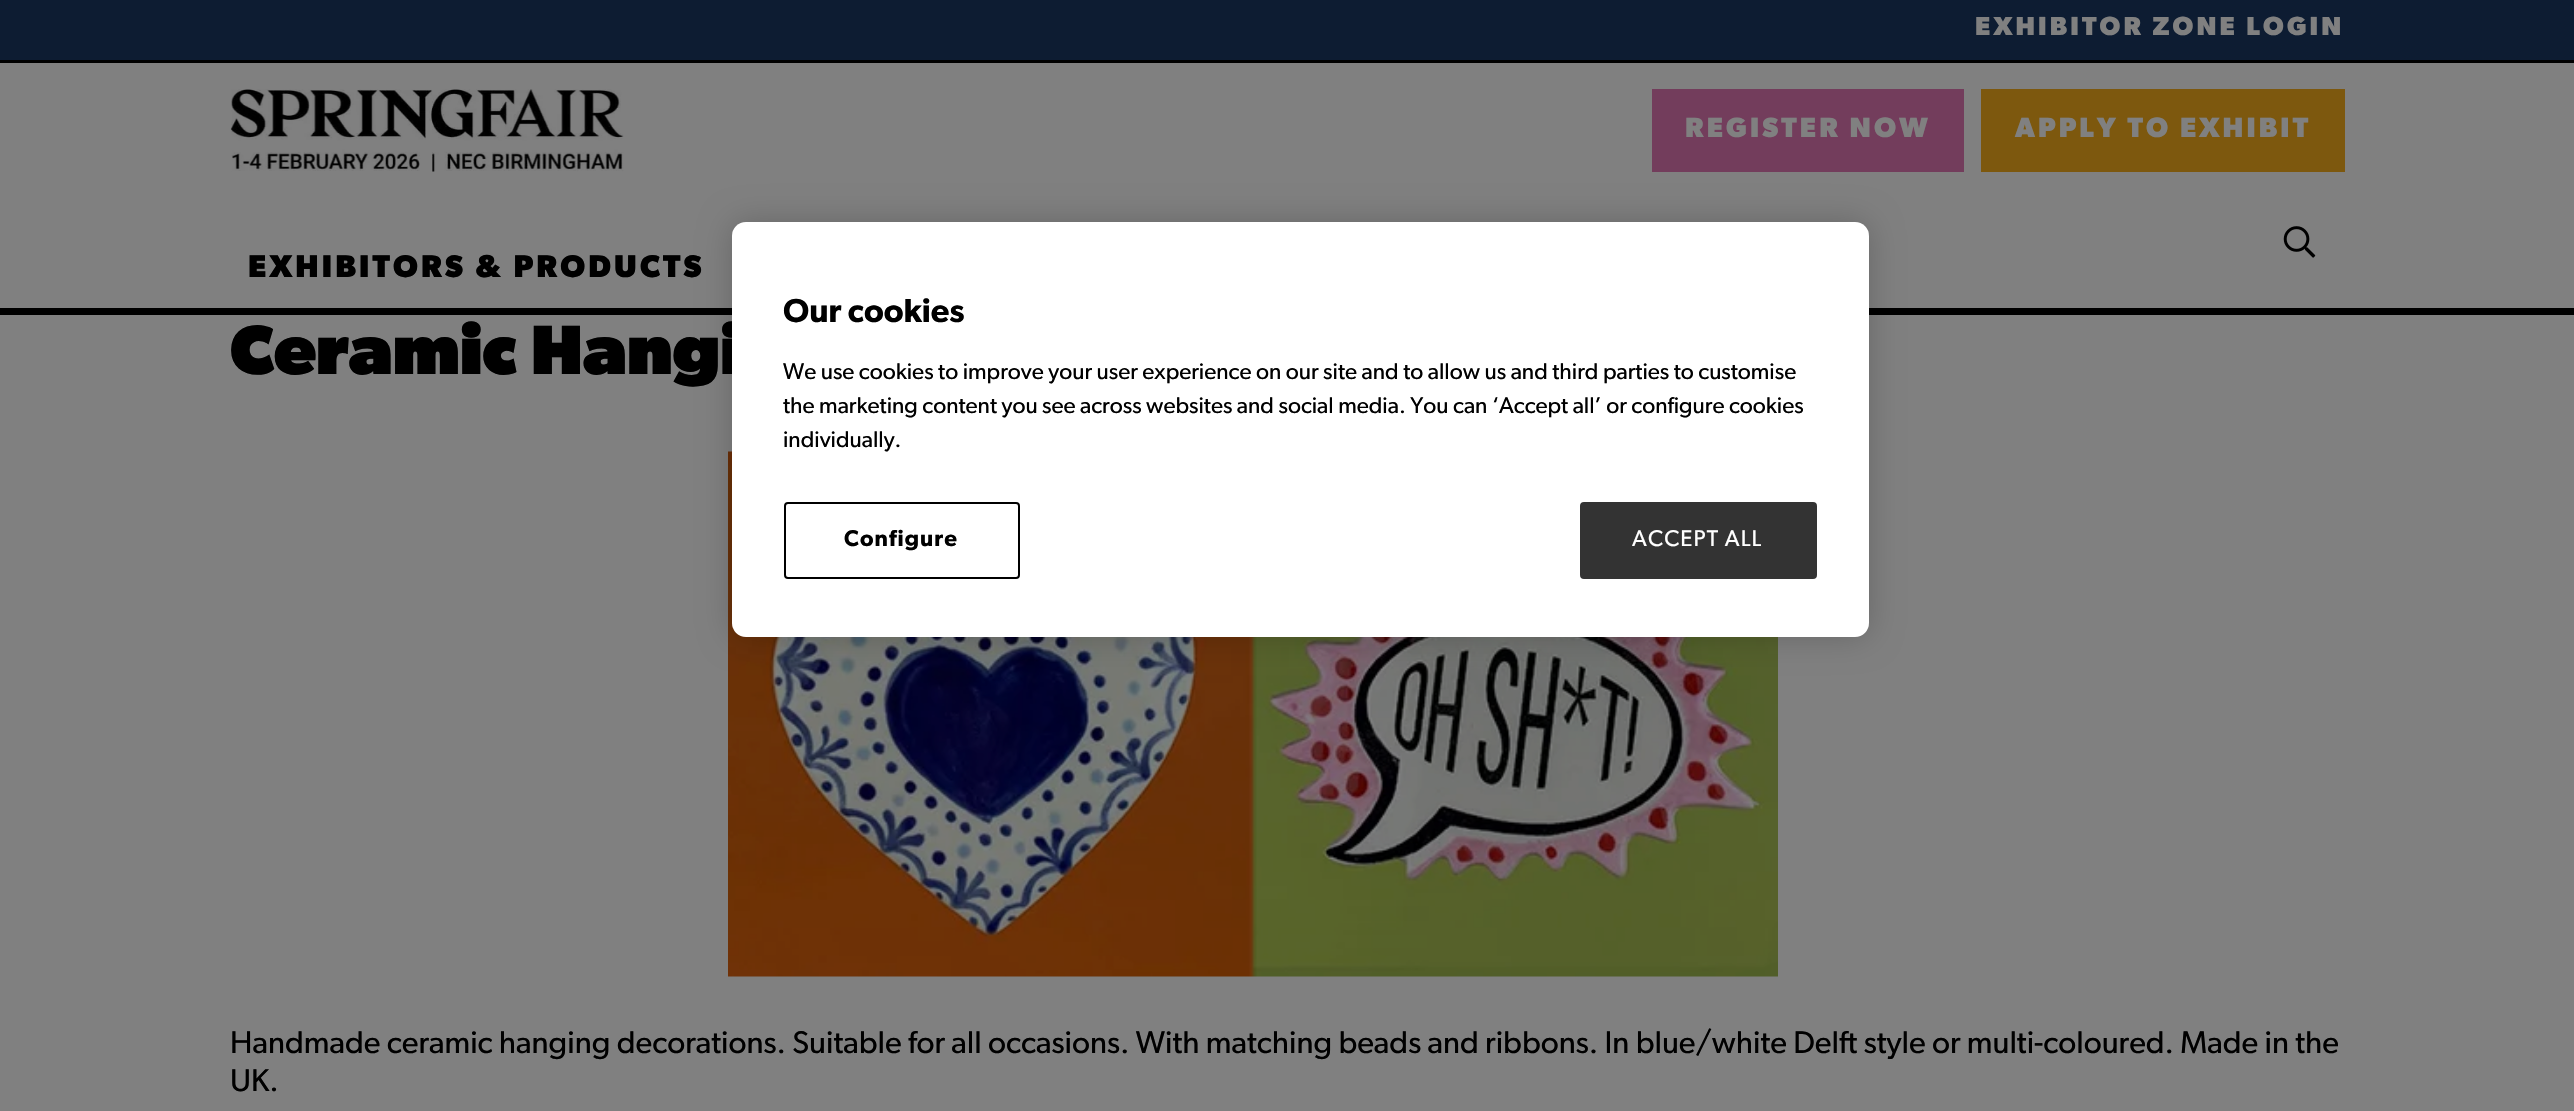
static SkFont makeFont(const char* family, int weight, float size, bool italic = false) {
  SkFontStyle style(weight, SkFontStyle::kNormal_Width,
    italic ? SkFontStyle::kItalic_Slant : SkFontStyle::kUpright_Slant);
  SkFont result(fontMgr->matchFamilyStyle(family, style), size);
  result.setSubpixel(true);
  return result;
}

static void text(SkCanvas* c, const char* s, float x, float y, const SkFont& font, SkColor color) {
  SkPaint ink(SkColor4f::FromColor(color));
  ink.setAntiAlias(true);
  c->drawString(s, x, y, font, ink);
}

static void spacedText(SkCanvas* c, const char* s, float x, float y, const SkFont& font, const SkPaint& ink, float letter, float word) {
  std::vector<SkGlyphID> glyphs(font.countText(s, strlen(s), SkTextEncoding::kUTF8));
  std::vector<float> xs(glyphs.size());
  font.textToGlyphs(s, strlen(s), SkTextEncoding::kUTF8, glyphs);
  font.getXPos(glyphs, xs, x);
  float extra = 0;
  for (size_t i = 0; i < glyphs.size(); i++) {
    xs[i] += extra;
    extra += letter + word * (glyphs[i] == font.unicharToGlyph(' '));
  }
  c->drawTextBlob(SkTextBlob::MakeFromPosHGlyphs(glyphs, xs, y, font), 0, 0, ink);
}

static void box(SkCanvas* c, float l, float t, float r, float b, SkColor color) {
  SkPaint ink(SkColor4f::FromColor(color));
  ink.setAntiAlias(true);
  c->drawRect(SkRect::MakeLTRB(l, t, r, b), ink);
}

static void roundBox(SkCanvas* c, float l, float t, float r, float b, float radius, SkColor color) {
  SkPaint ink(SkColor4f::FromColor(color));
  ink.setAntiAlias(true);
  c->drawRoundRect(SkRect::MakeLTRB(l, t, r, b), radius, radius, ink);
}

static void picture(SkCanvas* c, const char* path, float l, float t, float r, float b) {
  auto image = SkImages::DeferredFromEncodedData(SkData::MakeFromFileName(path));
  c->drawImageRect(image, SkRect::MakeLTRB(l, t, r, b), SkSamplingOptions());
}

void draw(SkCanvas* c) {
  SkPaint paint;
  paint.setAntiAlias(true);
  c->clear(0xff808080);
  box(c, 0, 0, 2574, 60, 0xff0d1c32);
  box(c, 0, 60, 2574, 63, 0xff000000);
  SkFont face1 = makeFont("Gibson", 700, 26.25f);
  paint.setColor(0xff808080);
  spacedText(c, "EXHIBITOR ZONE LOGIN", 1975, 35, face1, paint, 3.15f, 0);
  box(c, 0, 308, 2574, 315, 0xff000000);
  picture(c, "img_01.png", 230, 89, 624, 172);
  box(c, 1652, 89, 1964, 172, 0xff733d5c);
  SkFont face2 = makeFont("Gibson", 700, 28);
  spacedText(c, "REGISTER NOW", 1685, 137, face2, paint, 3.15f, 0);
  box(c, 1981, 89, 2345, 172, 0xff7d580e);
  spacedText(c, "APPLY TO EXHIBIT", 2015, 137, face2, paint, 3.15f, 0);
  picture(c, "img_02.png", 2283, 226, 2316, 258);
  SkFont face3 = makeFont("Gibson", 700, 31.5f);
  paint.setColor(0xff000000);
  spacedText(c, "EXHIBITORS & PRODUCTS", 248, 277, face3, paint, 3.15f, 0);
  SkFont face4 = makeFont("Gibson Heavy", 900, 70);
  text(c, "Ceramic Hangi", 230, 374, face4, 0xff000000);
  picture(c, "img_03.png", 728, 451, 1778, 977);
  SkFont face5 = makeFont("Gibson", 400, 31.5f);
  text(c, "Handmade ceramic hanging decorations. Suitable for all occasions. With matching beads and ribbons. In blue/white Delft style or multi-coloured. Made in the", 230, 1053, face5, 0xff000000);
  text(c, "UK.", 230, 1091, face5, 0xff000000);
  paint.setColor(0x33000000);
  paint.setMaskFilter(SkMaskFilter::MakeBlur(kNormal_SkBlurStyle, 16));
  c->drawRoundRect(SkRect::MakeLTRB(732, 222, 1869, 637), 14, 14, paint);
  paint.setMaskFilter(nullptr);
  roundBox(c, 732, 222, 1869, 637, 14, 0xffffffff);
  SkFont face6 = makeFont("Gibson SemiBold", 600, 33.25f);
  text(c, "Our cookies", 783, 322, face6, 0xff000000);
  SkFont face7 = makeFont("Gibson", 400, 22.75f);
  text(c, "We use cookies to improve your user experience on our site and to allow us and third parties to customise", 783, 379, face7, 0xff000000);
  text(c, "the marketing content you see across websites and social media. You can ‘Accept all’ or configure cookies", 783, 413, face7, 0xff000000);
  text(c, "individually.", 783, 447, face7, 0xff000000);
  paint.setStyle(SkPaint::kStroke_Style);
  paint.setStrokeWidth(2);
  paint.setColor(0xff000000);
  c->drawRoundRect(SkRect::MakeLTRB(785, 503, 1019, 578), 3, 3, paint);
  SkFont face8 = makeFont("Gibson SemiBold", 600, 22.75f);
  paint.setStyle(SkPaint::kFill_Style);
  spacedText(c, "Configure", 844, 546, face8, paint, 1.1f, 0);
  paint.setColor(0xff333333);
  c->drawRoundRect(SkRect::MakeLTRB(1581, 503, 1816, 578), 3, 3, paint);
  paint.setStyle(SkPaint::kStroke_Style);
  c->drawRoundRect(SkRect::MakeLTRB(1581, 503, 1816, 578), 3, 3, paint);
  paint.setStyle(SkPaint::kFill_Style);
  paint.setColor(0xffffffff);
  spacedText(c, "ACCEPT ALL", 1632, 546, face7, paint, 1.1f, 0);
}
